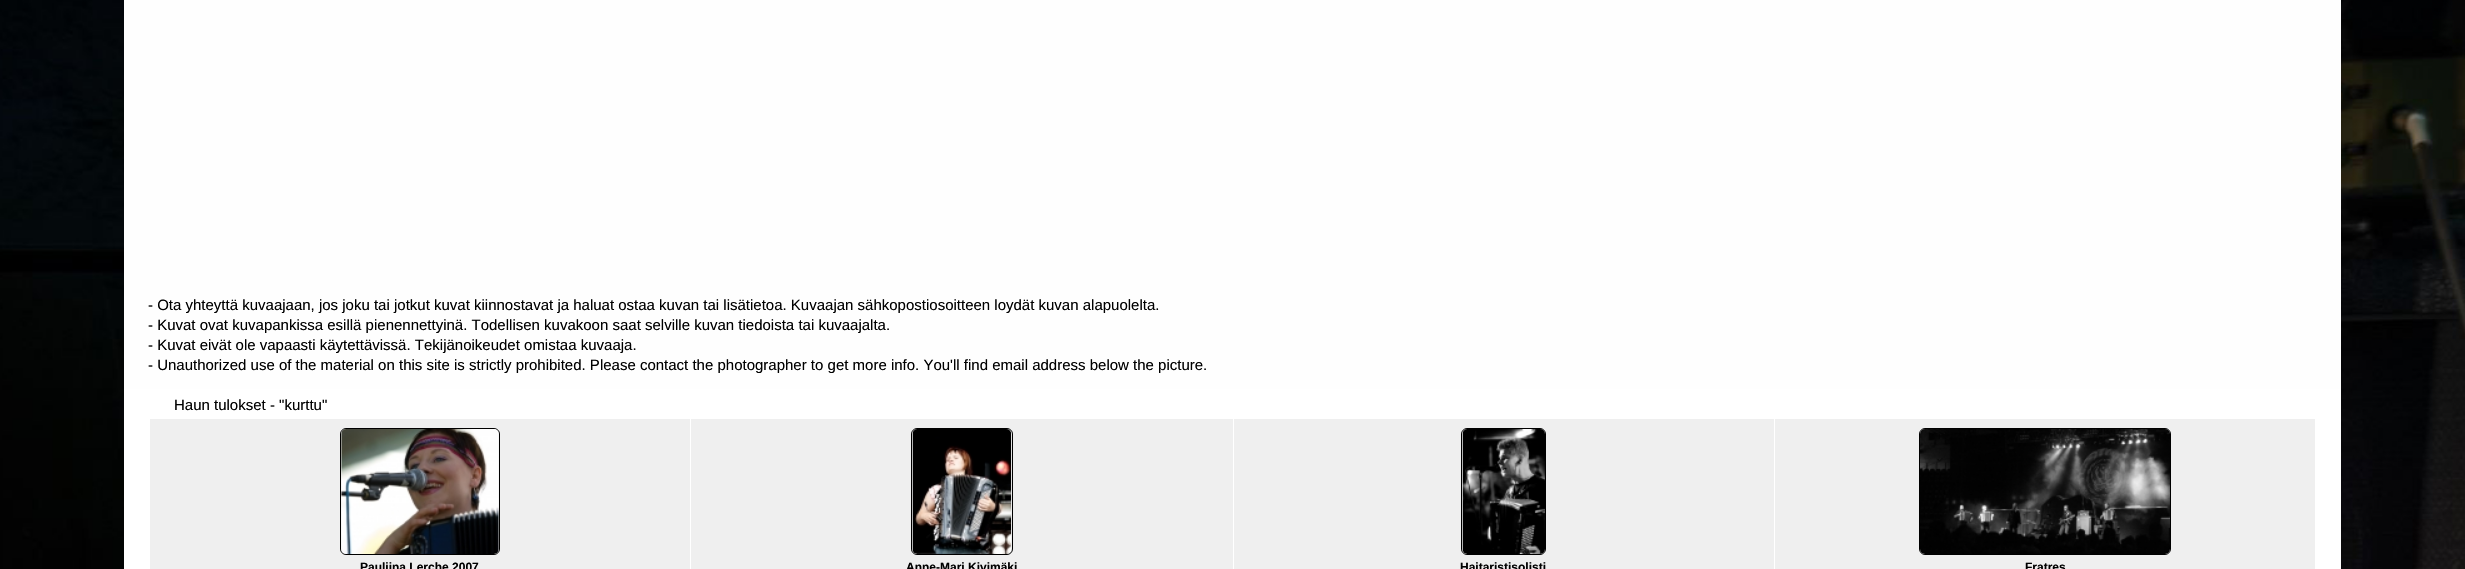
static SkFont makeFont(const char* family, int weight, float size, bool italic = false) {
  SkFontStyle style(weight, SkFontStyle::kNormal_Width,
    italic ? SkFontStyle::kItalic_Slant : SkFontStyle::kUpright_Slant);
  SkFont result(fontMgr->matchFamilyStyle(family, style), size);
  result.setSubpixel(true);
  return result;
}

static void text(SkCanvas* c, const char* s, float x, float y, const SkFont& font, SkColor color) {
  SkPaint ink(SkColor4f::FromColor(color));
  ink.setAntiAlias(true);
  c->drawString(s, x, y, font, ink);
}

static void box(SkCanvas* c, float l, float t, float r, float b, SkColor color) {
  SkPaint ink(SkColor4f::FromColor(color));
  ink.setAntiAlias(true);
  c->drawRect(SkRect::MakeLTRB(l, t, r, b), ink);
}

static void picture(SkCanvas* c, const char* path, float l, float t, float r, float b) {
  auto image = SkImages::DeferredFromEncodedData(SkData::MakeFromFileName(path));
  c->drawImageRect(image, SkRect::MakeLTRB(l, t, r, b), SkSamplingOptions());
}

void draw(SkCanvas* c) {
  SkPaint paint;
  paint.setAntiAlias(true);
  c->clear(0xffffffff);
  picture(c, "img_01.png", 0, 0, 2465, 569);
  box(c, 124, 0, 2341, 389, 0xfffefefe);
  SkFont face1 = makeFont("Liberation Sans", 400, 15);
  text(c, "- Ota yhteyttä kuvaajaan, jos joku tai jotkut kuvat kiinnostavat ja haluat ostaa kuvan tai lisätietoa. Kuvaajan sähkopostiosoitteen loydät kuvan alapuolelta.", 148, 310, face1, 0xff000000);
  text(c, "- Kuvat ovat kuvapankissa esillä pienennettyinä. Todellisen kuvakoon saat selville kuvan tiedoista tai kuvaajalta.", 148, 330, face1, 0xff000000);
  text(c, "- Kuvat eivät ole vapaasti käytettävissä. Tekijänoikeudet omistaa kuvaaja.", 148, 350, face1, 0xff000000);
  text(c, "- Unauthorized use of the material on this site is strictly prohibited. Please contact the photographer to get more info. You'll find email address below the picture.", 148, 370, face1, 0xff000000);
  box(c, 124, 389, 2341, 569, 0xffffffff);
  text(c, "Haun tulokset - \"kurttu\"", 174, 410, face1, 0xff000000);
  box(c, 150, 419, 690, 569, 0xffefefef);
  paint.setStyle(SkPaint::kStroke_Style);
  paint.setStrokeWidth(1);
  paint.setColor(0xff000000);
  c->drawRoundRect(SkRect::MakeLTRB(340.5f, 428.5f, 499.5f, 554.5f), 5.5f, 5.5f, paint);
  picture(c, "img_02.png", 341, 429, 499, 554);
  SkFont face2 = makeFont("Liberation Sans", 700, 12);
  text(c, "Pauliina Lerche 2007", 360, 571, face2, 0xff000000);
  box(c, 691, 419, 1233, 569, 0xffefefef);
  c->drawRoundRect(SkRect::MakeLTRB(911.5f, 428.5f, 1012.5f, 554.5f), 5.5f, 5.5f, paint);
  picture(c, "img_03.png", 912, 429, 1012, 554);
  text(c, "Anne-Mari Kivimäki", 906, 571, face2, 0xff000000);
  box(c, 1234, 419, 1774, 569, 0xffefefef);
  c->drawRoundRect(SkRect::MakeLTRB(1461.5f, 428.5f, 1545.5f, 554.5f), 5.5f, 5.5f, paint);
  picture(c, "img_04.png", 1462, 429, 1545, 554);
  text(c, "Haitaristisolisti", 1460, 571, face2, 0xff000000);
  box(c, 1775, 419, 2315, 569, 0xffefefef);
  c->drawRoundRect(SkRect::MakeLTRB(1919.5f, 428.5f, 2170.5f, 554.5f), 5.5f, 5.5f, paint);
  picture(c, "img_05.png", 1920, 429, 2170, 554);
  text(c, "Fratres", 2025, 571, face2, 0xff000000);
}
